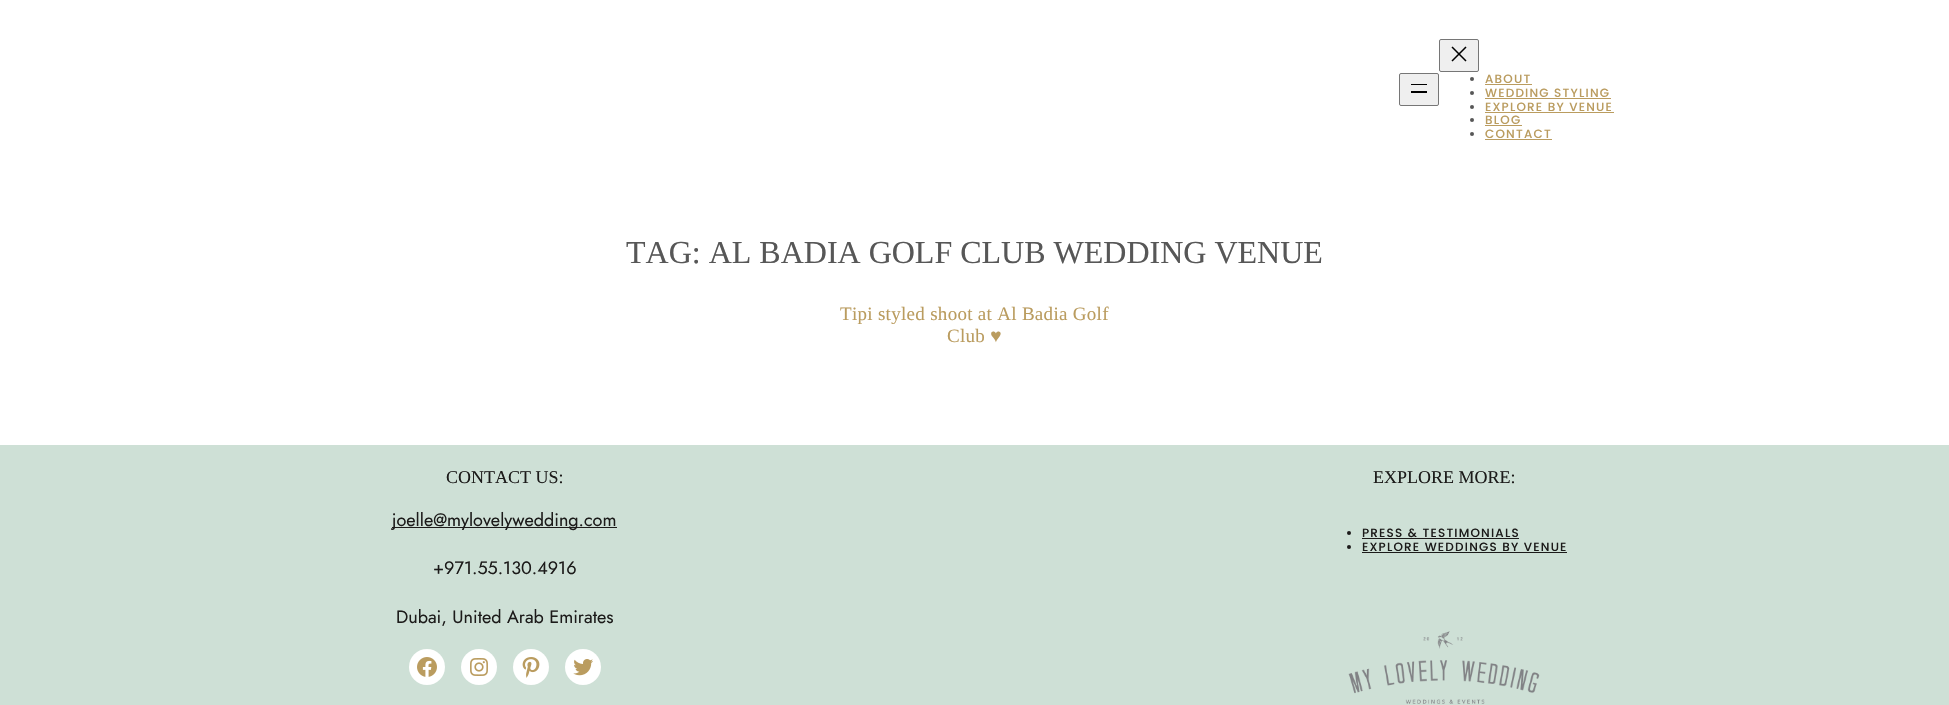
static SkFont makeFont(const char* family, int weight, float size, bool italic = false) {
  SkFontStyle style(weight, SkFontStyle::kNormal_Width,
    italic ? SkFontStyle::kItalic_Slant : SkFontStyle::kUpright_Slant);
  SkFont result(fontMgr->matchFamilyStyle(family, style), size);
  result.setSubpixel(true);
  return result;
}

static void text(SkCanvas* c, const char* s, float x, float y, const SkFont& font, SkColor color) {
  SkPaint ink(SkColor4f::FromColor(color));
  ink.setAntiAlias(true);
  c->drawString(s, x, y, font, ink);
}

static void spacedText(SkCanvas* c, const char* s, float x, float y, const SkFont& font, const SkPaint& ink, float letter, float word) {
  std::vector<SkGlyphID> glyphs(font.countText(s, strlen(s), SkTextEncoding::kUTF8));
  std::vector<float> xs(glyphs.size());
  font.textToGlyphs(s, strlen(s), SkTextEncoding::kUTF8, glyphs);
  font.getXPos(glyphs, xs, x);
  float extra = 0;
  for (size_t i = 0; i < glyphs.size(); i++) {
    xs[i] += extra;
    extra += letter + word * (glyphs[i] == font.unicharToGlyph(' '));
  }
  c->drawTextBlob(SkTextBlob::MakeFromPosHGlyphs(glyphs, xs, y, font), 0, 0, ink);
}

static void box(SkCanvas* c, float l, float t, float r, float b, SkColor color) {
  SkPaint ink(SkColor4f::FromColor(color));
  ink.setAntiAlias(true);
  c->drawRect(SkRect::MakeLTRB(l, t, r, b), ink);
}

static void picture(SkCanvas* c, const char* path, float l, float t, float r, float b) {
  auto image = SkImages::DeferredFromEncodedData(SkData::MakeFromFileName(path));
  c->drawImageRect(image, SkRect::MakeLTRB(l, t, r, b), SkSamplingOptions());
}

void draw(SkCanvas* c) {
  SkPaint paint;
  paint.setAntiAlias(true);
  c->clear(0xffffffff);
  paint.setColor(0xffefefef);
  c->drawRoundRect(SkRect::MakeLTRB(1399.5f, 73.5f, 1438.5f, 105.5f), 1.5f, 1.5f, paint);
  paint.setStyle(SkPaint::kStroke_Style);
  paint.setStrokeWidth(1);
  paint.setColor(0xff767676);
  c->drawRoundRect(SkRect::MakeLTRB(1399.5f, 73.5f, 1438.5f, 105.5f), 1.5f, 1.5f, paint);
  box(c, 1411, 84, 1427, 85, 0xff000000);
  box(c, 1411, 91, 1427, 93, 0xff000000);
  paint.setStyle(SkPaint::kFill_Style);
  paint.setColor(0xffefefef);
  c->drawRoundRect(SkRect::MakeLTRB(1439.5f, 39.5f, 1478.5f, 71.5f), 1.5f, 1.5f, paint);
  paint.setStyle(SkPaint::kStroke_Style);
  paint.setColor(0xff767676);
  c->drawRoundRect(SkRect::MakeLTRB(1439.5f, 39.5f, 1478.5f, 71.5f), 1.5f, 1.5f, paint);
  picture(c, "img_01.png", 1451, 46, 1467, 62);
  paint.setStyle(SkPaint::kFill_Style);
  paint.setColor(0xff575757);
  c->drawCircle(1472, 79, 2, paint);
  SkFont face1 = makeFont("Poppins", 500, 12);
  paint.setColor(0xffba9c5f);
  spacedText(c, "ABOUT", 1485, 83, face1, paint, 1.2f, 0);
  box(c, 1485, 84, 1532, 85, 0xffba9c5f);
  paint.setColor(0xff575757);
  c->drawCircle(1472, 93, 2, paint);
  paint.setColor(0xffba9c5f);
  spacedText(c, "WEDDING STYLING", 1485, 97, face1, paint, 1.2f, 0);
  box(c, 1485, 98, 1611, 99, 0xffba9c5f);
  paint.setColor(0xff575757);
  c->drawCircle(1472, 107, 2, paint);
  paint.setColor(0xffba9c5f);
  spacedText(c, "EXPLORE BY VENUE", 1485, 111, face1, paint, 1.2f, 0);
  box(c, 1485, 112, 1614, 113, 0xffba9c5f);
  paint.setColor(0xff575757);
  c->drawCircle(1472, 120, 2, paint);
  paint.setColor(0xffba9c5f);
  spacedText(c, "BLOG", 1485, 124, face1, paint, 1.2f, 0);
  box(c, 1485, 125, 1522, 126, 0xffba9c5f);
  paint.setColor(0xff575757);
  c->drawCircle(1472, 134, 2, paint);
  paint.setColor(0xffba9c5f);
  spacedText(c, "CONTACT", 1485, 138, face1, paint, 1.2f, 0);
  box(c, 1485, 139, 1552, 140, 0xffba9c5f);
  SkFont face2 = makeFont("Liberation Serif", 400, 32);
  text(c, "TAG: AL BADIA GOLF CLUB WEDDING VENUE", 626, 263, face2, 0xff575757);
  SkFont face3 = makeFont("Liberation Serif", 400, 19);
  spacedText(c, "Tipi styled shoot at Al Badia Golf", 840, 320, face3, paint, 0.3f, 0);
  spacedText(c, "Club ♥", 947, 342, face3, paint, 0.3f, 0);
  box(c, 0, 445, 1949, 705, 0xffcee0d6);
  SkFont face4 = makeFont("Liberation Serif", 400, 18);
  text(c, "CONTACT US:", 446, 483, face4, 0xff1c1b1a);
  box(c, 392, 527, 617, 528, 0xff1c1b1a);
  SkFont face5 = makeFont("Jost", 400, 18);
  text(c, "joelle@mylovelywedding.com", 392, 526, face5, 0xff1c1b1a);
  text(c, "+971.55.130.4916", 433, 574, face5, 0xff1c1b1a);
  text(c, "Dubai, United Arab Emirates", 396, 623, face5, 0xff1c1b1a);
  paint.setColor(0xffffffff);
  c->drawCircle(427, 667, 18, paint);
  picture(c, "img_02.png", 417, 657, 437, 677);
  c->drawCircle(479, 667, 18, paint);
  picture(c, "img_03.png", 470, 658, 488, 676);
  c->drawCircle(531, 667, 18, paint);
  picture(c, "img_04.png", 522, 657, 540, 678);
  c->drawCircle(583, 667, 18, paint);
  picture(c, "img_05.png", 573, 659, 593, 676);
  text(c, "EXPLORE MORE:", 1373, 483, face4, 0xff1c1b1a);
  paint.setColor(0xff1c1b1a);
  c->drawCircle(1349, 533, 2, paint);
  spacedText(c, "PRESS & TESTIMONIALS", 1362, 537, face1, paint, 1.2f, 0);
  box(c, 1362, 538, 1519, 539, 0xff1c1b1a);
  c->drawCircle(1349, 547, 2, paint);
  spacedText(c, "EXPLORE WEDDINGS BY VENUE", 1362, 551, face1, paint, 1.2f, 0);
  box(c, 1362, 552, 1567, 553, 0xff1c1b1a);
  picture(c, "img_06.png", 1348, 631, 1540, 704);
}
